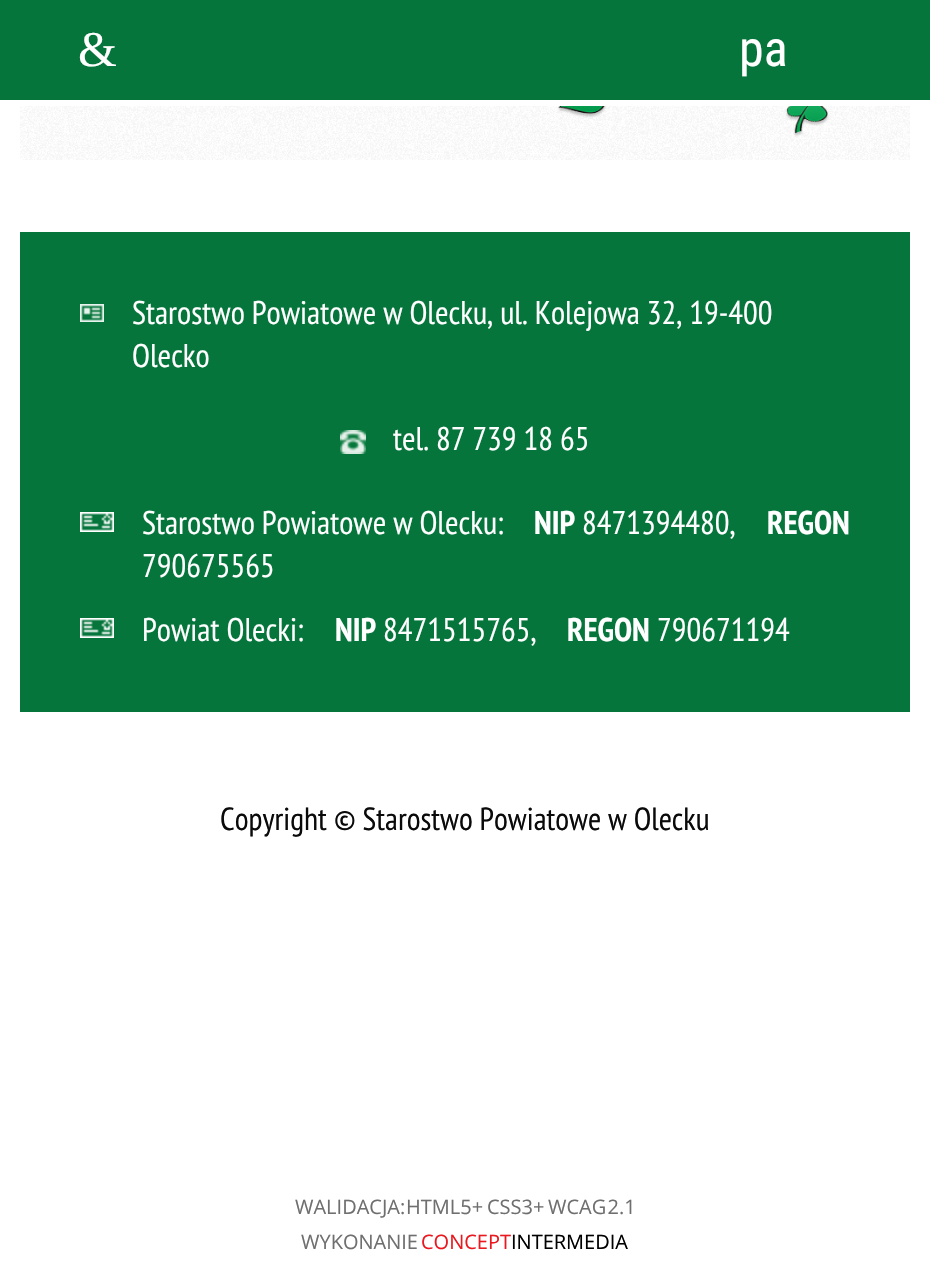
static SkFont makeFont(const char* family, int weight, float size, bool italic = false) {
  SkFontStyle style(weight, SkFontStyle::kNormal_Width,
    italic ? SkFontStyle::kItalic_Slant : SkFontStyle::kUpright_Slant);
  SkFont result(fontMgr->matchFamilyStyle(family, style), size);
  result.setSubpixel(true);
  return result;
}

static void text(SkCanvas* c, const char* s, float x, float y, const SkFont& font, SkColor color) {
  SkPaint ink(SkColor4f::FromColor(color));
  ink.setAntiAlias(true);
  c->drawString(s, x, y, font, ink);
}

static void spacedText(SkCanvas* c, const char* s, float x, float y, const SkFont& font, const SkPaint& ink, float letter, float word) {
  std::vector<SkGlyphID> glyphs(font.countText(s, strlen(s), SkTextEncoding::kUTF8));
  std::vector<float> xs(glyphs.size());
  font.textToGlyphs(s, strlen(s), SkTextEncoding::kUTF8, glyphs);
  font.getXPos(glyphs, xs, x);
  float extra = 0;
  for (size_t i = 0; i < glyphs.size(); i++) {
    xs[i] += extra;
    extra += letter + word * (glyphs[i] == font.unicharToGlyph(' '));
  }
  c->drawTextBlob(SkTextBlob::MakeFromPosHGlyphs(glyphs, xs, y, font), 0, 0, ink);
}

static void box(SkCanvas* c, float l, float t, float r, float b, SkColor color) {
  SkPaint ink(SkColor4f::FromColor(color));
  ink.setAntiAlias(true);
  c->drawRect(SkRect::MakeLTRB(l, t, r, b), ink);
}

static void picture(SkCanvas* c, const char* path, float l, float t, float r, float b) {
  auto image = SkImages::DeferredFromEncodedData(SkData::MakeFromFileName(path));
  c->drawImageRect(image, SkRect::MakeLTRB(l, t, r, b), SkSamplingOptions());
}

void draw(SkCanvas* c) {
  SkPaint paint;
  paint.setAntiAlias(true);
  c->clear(0xffffffff);
  box(c, 0, 0, 930, 100, 0xff05753b);
  SkFont face1 = makeFont("Liberation Serif", 400, 50);
  text(c, "&", 78, 66, face1, 0xffffffff);
  SkFont face2 = makeFont("Roboto Condensed", 400, 50);
  text(c, "pa", 739, 66, face2, 0xffffffff);
  picture(c, "img_01.png", 20, 106, 910, 160);
  box(c, 20, 232, 910, 712, 0xff05753b);
  picture(c, "img_02.png", 80, 304, 104, 322);
  SkFont face3 = makeFont("PT Sans Narrow", 400, 32.75f);
  text(c, "Starostwo Powiatowe w Olecku, ul. Kolejowa 32, 19-400", 132, 324, face3, 0xffffffff);
  text(c, "Olecko", 132, 367, face3, 0xffffffff);
  picture(c, "img_03.png", 340, 430, 366, 454);
  text(c, "tel. 87 739 18 65", 393, 450, face3, 0xffffffff);
  picture(c, "img_04.png", 80, 512, 114, 532);
  text(c, "Starostwo Powiatowe w Olecku:", 142, 534, face3, 0xffffffff);
  SkFont face4 = makeFont("PT Sans Narrow", 700, 32.75f);
  text(c, "NIP", 534, 534, face4, 0xffffffff);
  text(c, "8471394480,", 582, 534, face3, 0xffffffff);
  text(c, "REGON", 767, 534, face4, 0xffffffff);
  text(c, "790675565", 142, 577, face3, 0xffffffff);
  picture(c, "img_04.png", 80, 618, 114, 638);
  text(c, "Powiat Olecki:", 142, 641, face3, 0xffffffff);
  text(c, "NIP", 335, 641, face4, 0xffffffff);
  text(c, "8471515765,", 383, 641, face3, 0xffffffff);
  text(c, "REGON", 567, 641, face4, 0xffffffff);
  text(c, "790671194", 657, 641, face3, 0xffffffff);
  SkFont face5 = makeFont("PT Sans Narrow", 400, 32);
  text(c, "Copyright © Starostwo Powiatowe w Olecku", 220, 830, face5, 0xff0a0a0a);
  SkFont face6 = makeFont("Open Sans", 400, 20);
  text(c, "WALIDACJA:", 295, 1214, face6, 0xff6f6f6f);
  text(c, "HTML5+", 406, 1214, face6, 0xff6f6f6f);
  text(c, "CSS3+", 487, 1214, face6, 0xff6f6f6f);
  paint.setColor(0xff6f6f6f);
  spacedText(c, "WCAG 2.1", 548, 1214, face6, paint, 0, -4);
  text(c, "WYKONANIE", 301, 1249, face6, 0xff6f6f6f);
  text(c, "CONCEPT", 421, 1249, face6, 0xffea1920);
  text(c, "INTERMEDIA", 511, 1249, face6, 0xff000000);
}
